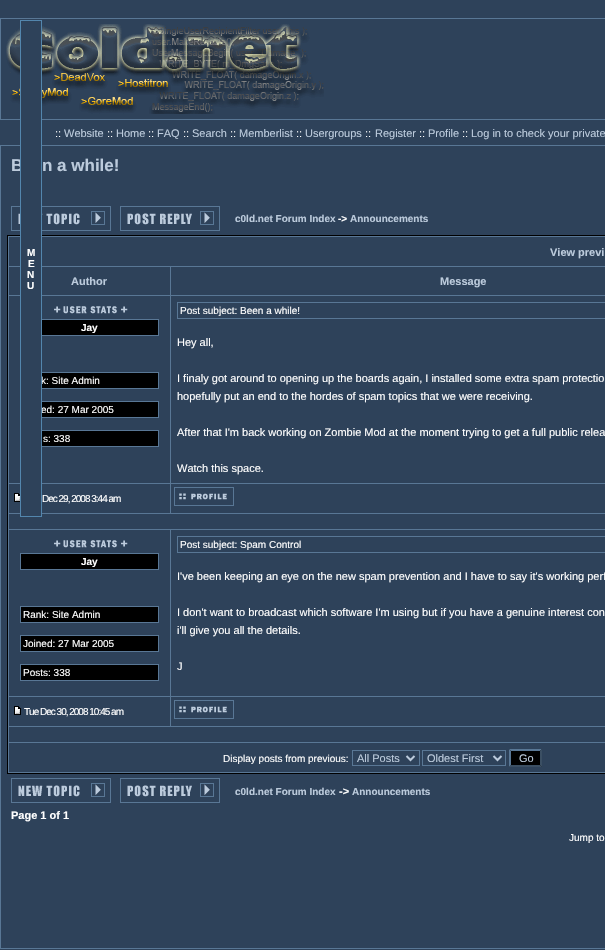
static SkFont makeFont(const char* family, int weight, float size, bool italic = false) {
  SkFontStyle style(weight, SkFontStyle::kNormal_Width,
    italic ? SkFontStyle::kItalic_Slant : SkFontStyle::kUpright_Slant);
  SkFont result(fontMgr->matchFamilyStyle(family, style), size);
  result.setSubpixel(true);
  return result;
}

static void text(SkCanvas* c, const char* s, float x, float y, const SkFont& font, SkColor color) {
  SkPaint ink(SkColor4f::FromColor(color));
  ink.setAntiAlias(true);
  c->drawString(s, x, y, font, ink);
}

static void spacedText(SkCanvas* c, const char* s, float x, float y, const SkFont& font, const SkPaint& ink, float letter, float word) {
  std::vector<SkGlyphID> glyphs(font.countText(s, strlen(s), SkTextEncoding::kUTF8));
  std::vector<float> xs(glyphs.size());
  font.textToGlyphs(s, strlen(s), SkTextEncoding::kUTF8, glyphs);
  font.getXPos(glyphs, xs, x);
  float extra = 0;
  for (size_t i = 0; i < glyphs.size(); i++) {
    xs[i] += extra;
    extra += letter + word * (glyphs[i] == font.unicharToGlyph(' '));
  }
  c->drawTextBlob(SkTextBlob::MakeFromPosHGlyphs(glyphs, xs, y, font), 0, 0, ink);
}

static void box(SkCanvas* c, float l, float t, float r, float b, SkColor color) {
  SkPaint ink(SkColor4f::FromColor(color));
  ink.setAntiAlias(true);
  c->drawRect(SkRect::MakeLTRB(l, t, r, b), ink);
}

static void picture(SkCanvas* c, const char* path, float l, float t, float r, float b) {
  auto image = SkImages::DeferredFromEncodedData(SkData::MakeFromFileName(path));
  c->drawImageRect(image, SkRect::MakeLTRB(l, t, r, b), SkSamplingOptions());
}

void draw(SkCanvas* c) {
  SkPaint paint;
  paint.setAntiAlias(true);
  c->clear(0xff2e425a);
  paint.setStyle(SkPaint::kStroke_Style);
  paint.setStrokeWidth(1);
  paint.setColor(0xff597795);
  c->drawRect(SkRect::MakeLTRB(0.5f, 18.5f, 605.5f, 119.5f), paint);
  picture(c, "img_01.png", 6, 24, 324, 114);
  SkFont face1 = makeFont("Liberation Sans", 400, 11);
  text(c, "::", 55, 137, face1, 0xffffffff);
  text(c, "Website", 64, 137, face1, 0xffbccbdc);
  text(c, "::", 107, 137, face1, 0xffffffff);
  text(c, "Home", 116, 137, face1, 0xffbccbdc);
  text(c, "::", 148, 137, face1, 0xffffffff);
  text(c, "FAQ", 157, 137, face1, 0xffbccbdc);
  text(c, "::", 183, 137, face1, 0xffffffff);
  text(c, "Search", 192, 137, face1, 0xffbccbdc);
  text(c, "::", 230, 137, face1, 0xffffffff);
  text(c, "Memberlist", 239, 137, face1, 0xffbccbdc);
  text(c, "::", 296, 137, face1, 0xffffffff);
  text(c, "Usergroups", 305, 137, face1, 0xffbccbdc);
  text(c, "::", 365, 137, face1, 0xffffffff);
  text(c, "Register", 375, 137, face1, 0xffbccbdc);
  text(c, "::", 419, 137, face1, 0xffffffff);
  text(c, "Profile", 428, 137, face1, 0xffbccbdc);
  text(c, "::", 462, 137, face1, 0xffffffff);
  text(c, "Log in to check your private", 471, 137, face1, 0xffbccbdc);
  c->drawRect(SkRect::MakeLTRB(0.5f, 145.5f, 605.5f, 948.5f), paint);
  SkFont face2 = makeFont("Liberation Sans", 700, 17);
  text(c, "B", 11, 171, face2, 0xffbccbdc);
  text(c, "n a while!", 42, 171, face2, 0xffbccbdc);
  picture(c, "img_02.png", 11, 206, 111, 231);
  picture(c, "img_03.png", 120, 206, 220, 231);
  SkFont face3 = makeFont("Liberation Sans", 700, 10);
  text(c, "c0ld.net Forum Index", 235, 222, face3, 0xffbccbdc);
  text(c, "->", 338, 222, face3, 0xffffffff);
  text(c, "Announcements", 350, 222, face3, 0xffbccbdc);
  paint.setStyle(SkPaint::kFill_Style);
  c->drawRect(SkRect::MakeLTRB(7.5f, 235.5f, 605.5f, 773.5f), paint);
  paint.setStyle(SkPaint::kStroke_Style);
  paint.setColor(0xff000000);
  c->drawRect(SkRect::MakeLTRB(7.5f, 235.5f, 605.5f, 773.5f), paint);
  box(c, 9, 237, 605, 266, 0xff2e425a);
  SkFont face4 = makeFont("Liberation Sans", 700, 11);
  text(c, "View previ", 550, 256, face4, 0xffbccbdc);
  box(c, 9, 267, 170, 295, 0xff2e425a);
  text(c, "Author", 71, 285, face4, 0xffbccbdc);
  box(c, 171, 267, 605, 295, 0xff2e425a);
  text(c, "Message", 440, 285, face4, 0xffbccbdc);
  box(c, 9, 296, 170, 483, 0xff2e425a);
  picture(c, "img_04.png", 54, 306, 128, 314);
  box(c, 42, 319, 159, 320, 0xff597795);
  box(c, 158, 319, 159, 336, 0xff597795);
  box(c, 42, 335, 159, 336, 0xff597795);
  box(c, 42, 320, 158, 335, 0xff000000);
  text(c, "Jay", 81, 331, face3, 0xffffffff);
  box(c, 42, 372, 159, 373, 0xff597795);
  box(c, 158, 372, 159, 389, 0xff597795);
  box(c, 42, 388, 159, 389, 0xff597795);
  box(c, 42, 373, 158, 388, 0xff000000);
  SkFont face5 = makeFont("Liberation Sans", 400, 10);
  text(c, "k: Site Admin", 41, 384, face5, 0xffffffff);
  box(c, 42, 401, 159, 402, 0xff597795);
  box(c, 158, 401, 159, 418, 0xff597795);
  box(c, 42, 417, 159, 418, 0xff597795);
  box(c, 42, 402, 158, 417, 0xff000000);
  text(c, "ed: 27 Mar 2005", 41, 413, face5, 0xffffffff);
  box(c, 42, 430, 159, 431, 0xff597795);
  box(c, 158, 430, 159, 447, 0xff597795);
  box(c, 42, 446, 159, 447, 0xff597795);
  box(c, 42, 431, 158, 446, 0xff000000);
  text(c, "s: 338", 43, 442, face5, 0xffffffff);
  box(c, 171, 296, 605, 483, 0xff2e425a);
  box(c, 177, 302, 605, 303, 0xff597795);
  box(c, 177, 318, 605, 319, 0xff597795);
  box(c, 177, 302, 178, 319, 0xff597795);
  text(c, "Post subject: Been a while!", 180, 314, face5, 0xffffffff);
  text(c, "Hey all,", 177, 346, face1, 0xffffffff);
  text(c, "I finaly got around to opening up the boards again, I installed some extra spam protectio", 177, 382, face1, 0xffffffff);
  text(c, "hopefully put an end to the hordes of spam topics that we were receiving.", 177, 400, face1, 0xffffffff);
  text(c, "After that I'm back working on Zombie Mod at the moment trying to get a full public relea", 177, 436, face1, 0xffffffff);
  text(c, "Watch this space.", 177, 472, face1, 0xffffffff);
  box(c, 9, 484, 170, 513, 0xff2e425a);
  picture(c, "img_05.png", 14, 493, 20, 502);
  paint.setStyle(SkPaint::kFill_Style);
  paint.setColor(0xffffffff);
  spacedText(c, "Dec 29, 2008 3:44 am", 42, 502, face5, paint, -1, 0);
  box(c, 171, 484, 605, 513, 0xff2e425a);
  picture(c, "img_06.png", 174, 487, 234, 506);
  box(c, 9, 514, 605, 529, 0xff2e425a);
  box(c, 9, 530, 170, 696, 0xff2e425a);
  picture(c, "img_04.png", 54, 540, 128, 548);
  box(c, 20, 553, 159, 554, 0xff597795);
  box(c, 158, 553, 159, 570, 0xff597795);
  box(c, 20, 569, 159, 570, 0xff597795);
  box(c, 20, 553, 21, 570, 0xff597795);
  box(c, 21, 554, 158, 569, 0xff000000);
  text(c, "Jay", 81, 565, face3, 0xffffffff);
  box(c, 20, 606, 159, 607, 0xff597795);
  box(c, 158, 606, 159, 623, 0xff597795);
  box(c, 20, 622, 159, 623, 0xff597795);
  box(c, 20, 606, 21, 623, 0xff597795);
  box(c, 21, 607, 158, 622, 0xff000000);
  text(c, "Rank: Site Admin", 23, 618, face5, 0xffffffff);
  box(c, 20, 635, 159, 636, 0xff597795);
  box(c, 158, 635, 159, 652, 0xff597795);
  box(c, 20, 651, 159, 652, 0xff597795);
  box(c, 20, 635, 21, 652, 0xff597795);
  box(c, 21, 636, 158, 651, 0xff000000);
  text(c, "Joined: 27 Mar 2005", 23, 647, face5, 0xffffffff);
  box(c, 20, 664, 159, 665, 0xff597795);
  box(c, 158, 664, 159, 681, 0xff597795);
  box(c, 20, 680, 159, 681, 0xff597795);
  box(c, 20, 664, 21, 681, 0xff597795);
  box(c, 21, 665, 158, 680, 0xff000000);
  text(c, "Posts: 338", 23, 676, face5, 0xffffffff);
  box(c, 171, 530, 605, 696, 0xff2e425a);
  box(c, 177, 536, 605, 537, 0xff597795);
  box(c, 177, 552, 605, 553, 0xff597795);
  box(c, 177, 536, 178, 553, 0xff597795);
  text(c, "Post subject: Spam Control", 180, 548, face5, 0xffffffff);
  text(c, "I've been keeping an eye on the new spam prevention and I have to say it's working perf", 177, 580, face1, 0xffffffff);
  text(c, "I don't want to broadcast which software I'm using but if you have a genuine interest con", 177, 616, face1, 0xffffffff);
  text(c, "i'll give you all the details.", 177, 634, face1, 0xffffffff);
  text(c, "J", 177, 670, face1, 0xffffffff);
  box(c, 9, 697, 170, 726, 0xff2e425a);
  picture(c, "img_07.png", 14, 706, 21, 715);
  spacedText(c, "Tue Dec 30, 2008 10:45 am", 24, 715, face5, paint, -1, 0);
  box(c, 171, 697, 605, 726, 0xff2e425a);
  picture(c, "img_06.png", 174, 700, 234, 719);
  box(c, 9, 727, 605, 742, 0xff2e425a);
  box(c, 9, 743, 605, 772, 0xff2e425a);
  text(c, "Display posts from previous:", 223, 762, face5, 0xffffffff);
  paint.setStyle(SkPaint::kStroke_Style);
  paint.setColor(0xff597795);
  c->drawRect(SkRect::MakeLTRB(352.5f, 750.5f, 419.5f, 765.5f), paint);
  paint.setStrokeWidth(2);
  paint.setColor(0xffbccbdc);
  c->drawPath(SkPathBuilder().moveTo(406.5f, 756).lineTo(410.5f, 760).lineTo(414.5f, 756).detach(), paint);
  text(c, "All Posts", 357, 762, face1, 0xffbccbdc);
  paint.setStrokeWidth(1);
  paint.setColor(0xff597795);
  c->drawRect(SkRect::MakeLTRB(422.5f, 750.5f, 505.5f, 765.5f), paint);
  paint.setStrokeWidth(2);
  paint.setColor(0xffbccbdc);
  c->drawPath(SkPathBuilder().moveTo(493.5f, 756).lineTo(497.5f, 760).lineTo(501.5f, 756).detach(), paint);
  text(c, "Oldest First", 427, 762, face1, 0xffbccbdc);
  box(c, 509, 749, 542, 767, 0xff000000);
  paint.setStyle(SkPaint::kFill_Style);
  paint.setColor(0xff597795);
  c->drawPath(SkPathBuilder().moveTo(509, 749).lineTo(542, 749).lineTo(540, 751).lineTo(511, 751).close().detach(), paint);
  paint.setColor(0xff3b4f63);
  c->drawPath(SkPathBuilder().moveTo(542, 749).lineTo(542, 767).lineTo(540, 765).lineTo(540, 751).close().detach(), paint);
  c->drawPath(SkPathBuilder().moveTo(542, 767).lineTo(509, 767).lineTo(511, 765).lineTo(540, 765).close().detach(), paint);
  paint.setColor(0xff597795);
  c->drawPath(SkPathBuilder().moveTo(509, 767).lineTo(509, 749).lineTo(511, 751).lineTo(511, 765).close().detach(), paint);
  text(c, "Go", 519, 762, face1, 0xffbccbdc);
  picture(c, "img_02.png", 11, 778, 111, 803);
  picture(c, "img_03.png", 120, 778, 220, 803);
  text(c, "c0ld.net Forum Index", 235, 795, face3, 0xffbccbdc);
  text(c, "->", 339, 795, face4, 0xffffffff);
  text(c, "Announcements", 352, 795, face3, 0xffbccbdc);
  text(c, "Page 1 of 1", 11, 819, face4, 0xffffffff);
  text(c, "Jump to", 569, 841, face5, 0xffffffff);
  box(c, 20, 20, 42, 517, 0xff5386ad);
  box(c, 21, 21, 41, 516, 0xff2e425a);
  text(c, "M", 27, 256, face3, 0xffffffff);
  text(c, "E", 28, 267, face3, 0xffffffff);
  text(c, "N", 27, 278, face3, 0xffffffff);
  text(c, "U", 27, 289, face3, 0xffffffff);
}
